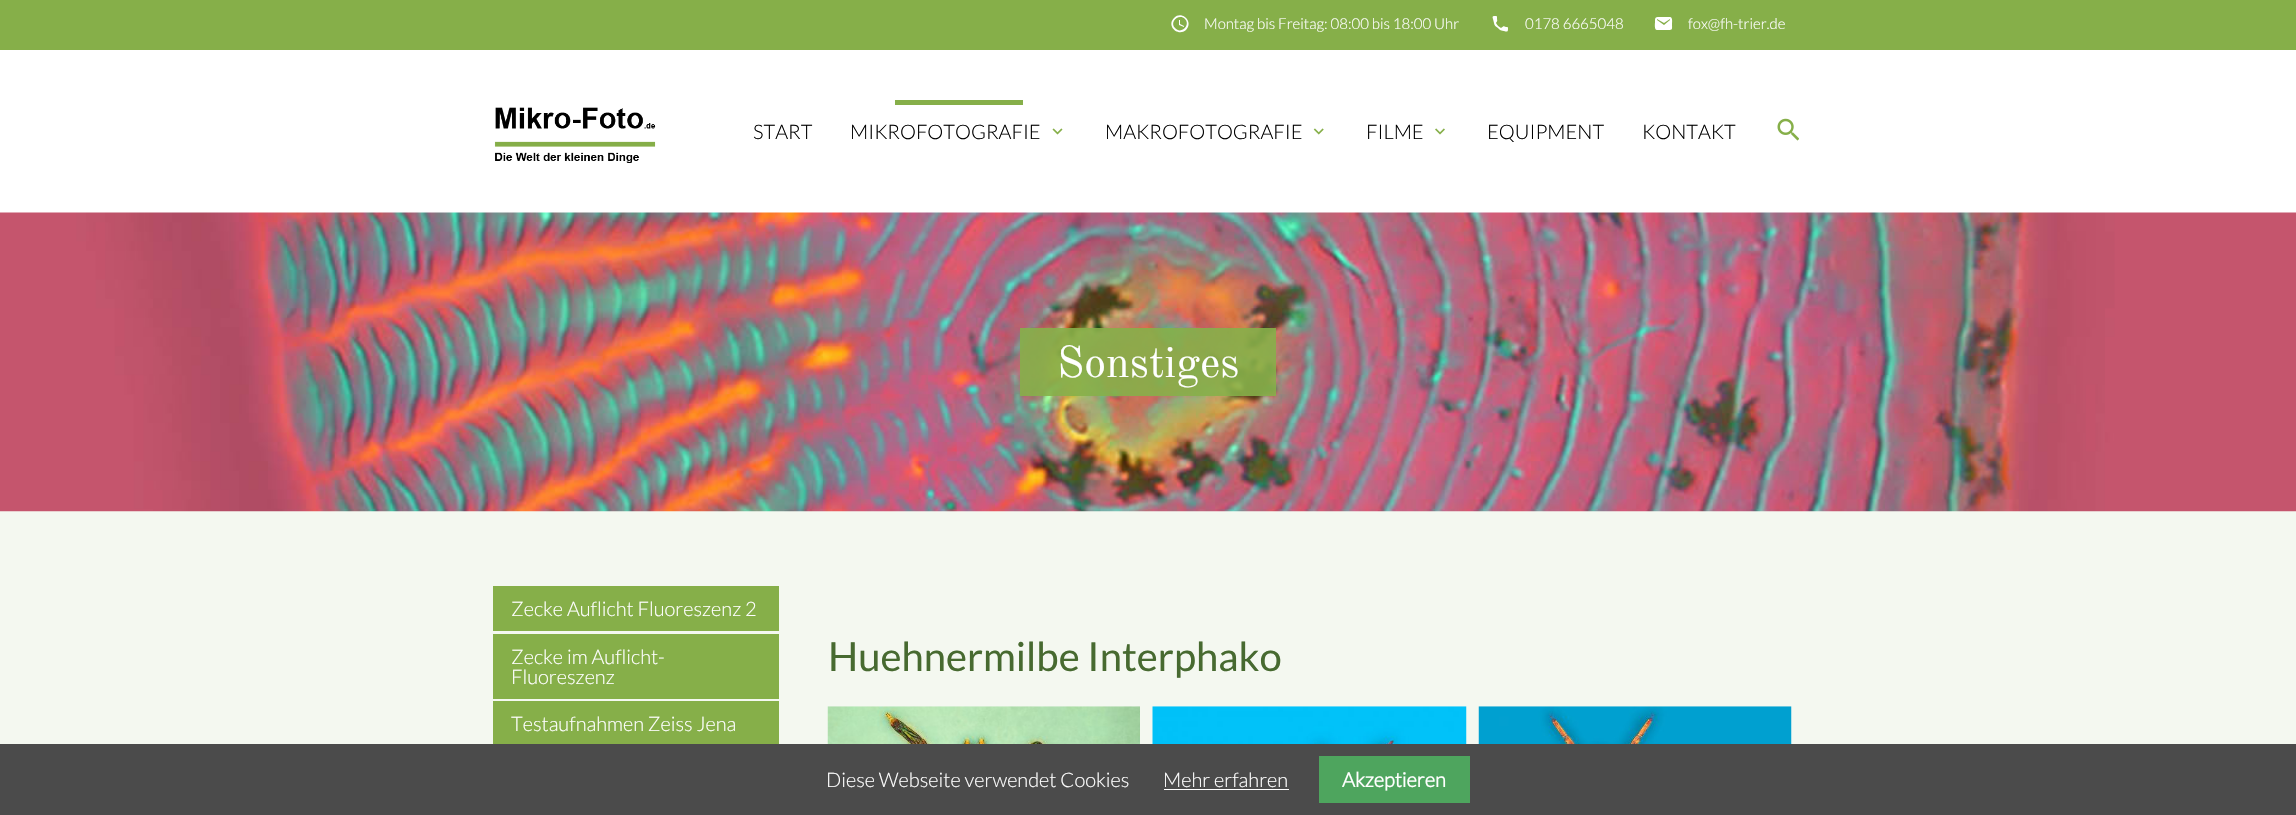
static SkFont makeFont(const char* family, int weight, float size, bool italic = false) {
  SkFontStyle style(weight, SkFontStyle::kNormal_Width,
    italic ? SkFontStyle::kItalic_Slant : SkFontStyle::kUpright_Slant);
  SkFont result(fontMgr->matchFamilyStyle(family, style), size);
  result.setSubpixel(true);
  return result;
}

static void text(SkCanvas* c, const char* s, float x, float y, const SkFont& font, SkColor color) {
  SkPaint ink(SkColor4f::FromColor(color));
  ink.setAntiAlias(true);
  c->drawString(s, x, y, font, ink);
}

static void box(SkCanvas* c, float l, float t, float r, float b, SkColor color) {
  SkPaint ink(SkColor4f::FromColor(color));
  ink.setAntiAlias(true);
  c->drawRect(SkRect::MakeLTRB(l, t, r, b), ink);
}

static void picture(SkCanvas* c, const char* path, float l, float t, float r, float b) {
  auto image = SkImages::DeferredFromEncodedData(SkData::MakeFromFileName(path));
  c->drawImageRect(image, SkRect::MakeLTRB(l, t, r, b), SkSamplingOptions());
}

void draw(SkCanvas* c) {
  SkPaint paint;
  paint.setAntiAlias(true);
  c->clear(0xfff4f8f0);
  box(c, 0, 0, 2296, 50, 0xff86af49);
  paint.setColor(0xffffffff);
  c->drawPath(SkPathBuilder().moveTo(1030, 34).close().moveTo(1050, 34).close().moveTo(1070, 34).close().moveTo(1090, 34).close().moveTo(1110, 34).close().moveTo(1130, 34).close().moveTo(1150, 34).close().moveTo(1180, 20).lineTo(1180, 24).lineTo(1184, 26).lineTo(1184, 27).lineTo(1179, 25).lineTo(1179, 20).close().moveTo(1175, 28).cubicTo(1181, 35, 1191, 25, 1185, 19).cubicTo(1179, 13, 1169, 22, 1175, 28).close().moveTo(1174, 18).cubicTo(1182, 10, 1194, 22, 1186, 30).cubicTo(1178, 37, 1166, 26, 1174, 18).close().detach(), paint);
  SkFont face1 = makeFont("Lato", 300, 15);
  text(c, "Montag bis Freitag: 08:00 bis 18:00 Uhr", 1204, 29, face1, 0xffffffff);
  c->drawPath(SkPathBuilder().moveTo(1350, 34).close().moveTo(1370, 34).close().moveTo(1390, 34).close().moveTo(1410, 34).close().moveTo(1430, 34).close().moveTo(1450, 34).close().moveTo(1470, 34).close().moveTo(1496, 23).cubicTo(1497, 25, 1499, 27, 1501, 28).cubicTo(1504, 26, 1503, 26, 1506, 27).cubicTo(1508, 27, 1508, 27, 1508, 29).cubicTo(1508, 32, 1507, 32, 1504, 31).cubicTo(1502, 31, 1499, 30, 1498, 28).cubicTo(1496, 27, 1494, 25, 1494, 23).lineTo(1493, 19).cubicTo(1492, 16, 1493, 16, 1495, 16).cubicTo(1497, 16, 1497, 16, 1497, 18).cubicTo(1497, 21, 1498, 20, 1496, 23).close().detach(), paint);
  text(c, "0178 6665048", 1525, 29, face1, 0xffffffff);
  c->drawPath(SkPathBuilder().moveTo(1514, 34).close().moveTo(1534, 34).close().moveTo(1554, 34).close().moveTo(1574, 34).close().moveTo(1594, 34).close().moveTo(1614, 34).close().moveTo(1634, 34).close().moveTo(1670, 20).lineTo(1670, 19).lineTo(1664, 23).lineTo(1657, 19).lineTo(1657, 20).lineTo(1664, 25).close().moveTo(1670, 17).cubicTo(1673, 17, 1672, 23, 1672, 24).cubicTo(1672, 29, 1673, 30, 1668, 30).lineTo(1657, 30).cubicTo(1654, 30, 1655, 23, 1655, 22).cubicTo(1655, 18, 1655, 17, 1659, 17).close().detach(), paint);
  text(c, "fox@fh-trier.de", 1688, 29, face1, 0xffffffff);
  box(c, 0, 50, 2296, 213, 0xffffffff);
  picture(c, "img_01.png", 494, 107, 656, 163);
  SkFont face2 = makeFont("Lato", 300, 20);
  text(c, "START", 753, 139, face2, 0xff000000);
  box(c, 895, 100, 1023, 105, 0xff86af49);
  text(c, "MIKROFOTOGRAFIE", 850, 139, face2, 0xff000000);
  picture(c, "img_02.png", 1052, 128, 1063, 135);
  text(c, "MAKROFOTOGRAFIE", 1105, 139, face2, 0xff000000);
  picture(c, "img_03.png", 1313, 128, 1324, 135);
  text(c, "FILME", 1366, 139, face2, 0xff000000);
  picture(c, "img_04.png", 1435, 128, 1445, 135);
  text(c, "EQUIPMENT", 1487, 139, face2, 0xff000000);
  text(c, "KONTAKT", 1642, 139, face2, 0xff000000);
  picture(c, "img_05.png", 1777, 118, 1799, 141);
  picture(c, "img_06.png", 0, 212, 2296, 512);
  box(c, 1020, 328, 1276, 396, 0xe686af49);
  SkFont face3 = makeFont("Old Standard TT", 400, 44);
  text(c, "Sonstiges", 1057, 377, face3, 0xffffffff);
  box(c, 493, 586, 779, 631, 0xff86af49);
  text(c, "Zecke Auflicht Fluoreszenz 2", 511, 616, face2, 0xffffffff);
  box(c, 493, 634, 779, 699, 0xff86af49);
  text(c, "Zecke im Auflicht-", 511, 664, face2, 0xffffffff);
  text(c, "Fluoreszenz", 511, 684, face2, 0xffffffff);
  box(c, 493, 701, 779, 744, 0xff86af49);
  text(c, "Testaufnahmen Zeiss Jena", 511, 731, face2, 0xffffffff);
  SkFont face4 = makeFont("Lato", 400, 40);
  text(c, "Huehnermilbe Interphako", 828, 671, face4, 0xff476a30);
  picture(c, "img_07.png", 827, 706, 1140, 744);
  picture(c, "img_08.png", 1152, 706, 1467, 744);
  picture(c, "img_09.png", 1478, 706, 1792, 744);
  box(c, 0, 744, 2296, 815, 0xff4b4b4b);
  text(c, "Diese Webseite verwendet Cookies", 826, 787, face2, 0xffffffff);
  text(c, "Mehr erfahren", 1163, 787, face2, 0xffffffff);
  box(c, 1164, 789, 1289, 790, 0xffffffff);
  box(c, 1319, 756, 1470, 803, 0xff4ea55e);
  SkFont face5 = makeFont("Lato", 700, 20);
  text(c, "Akzeptieren", 1342, 787, face5, 0xffffffff);
}
